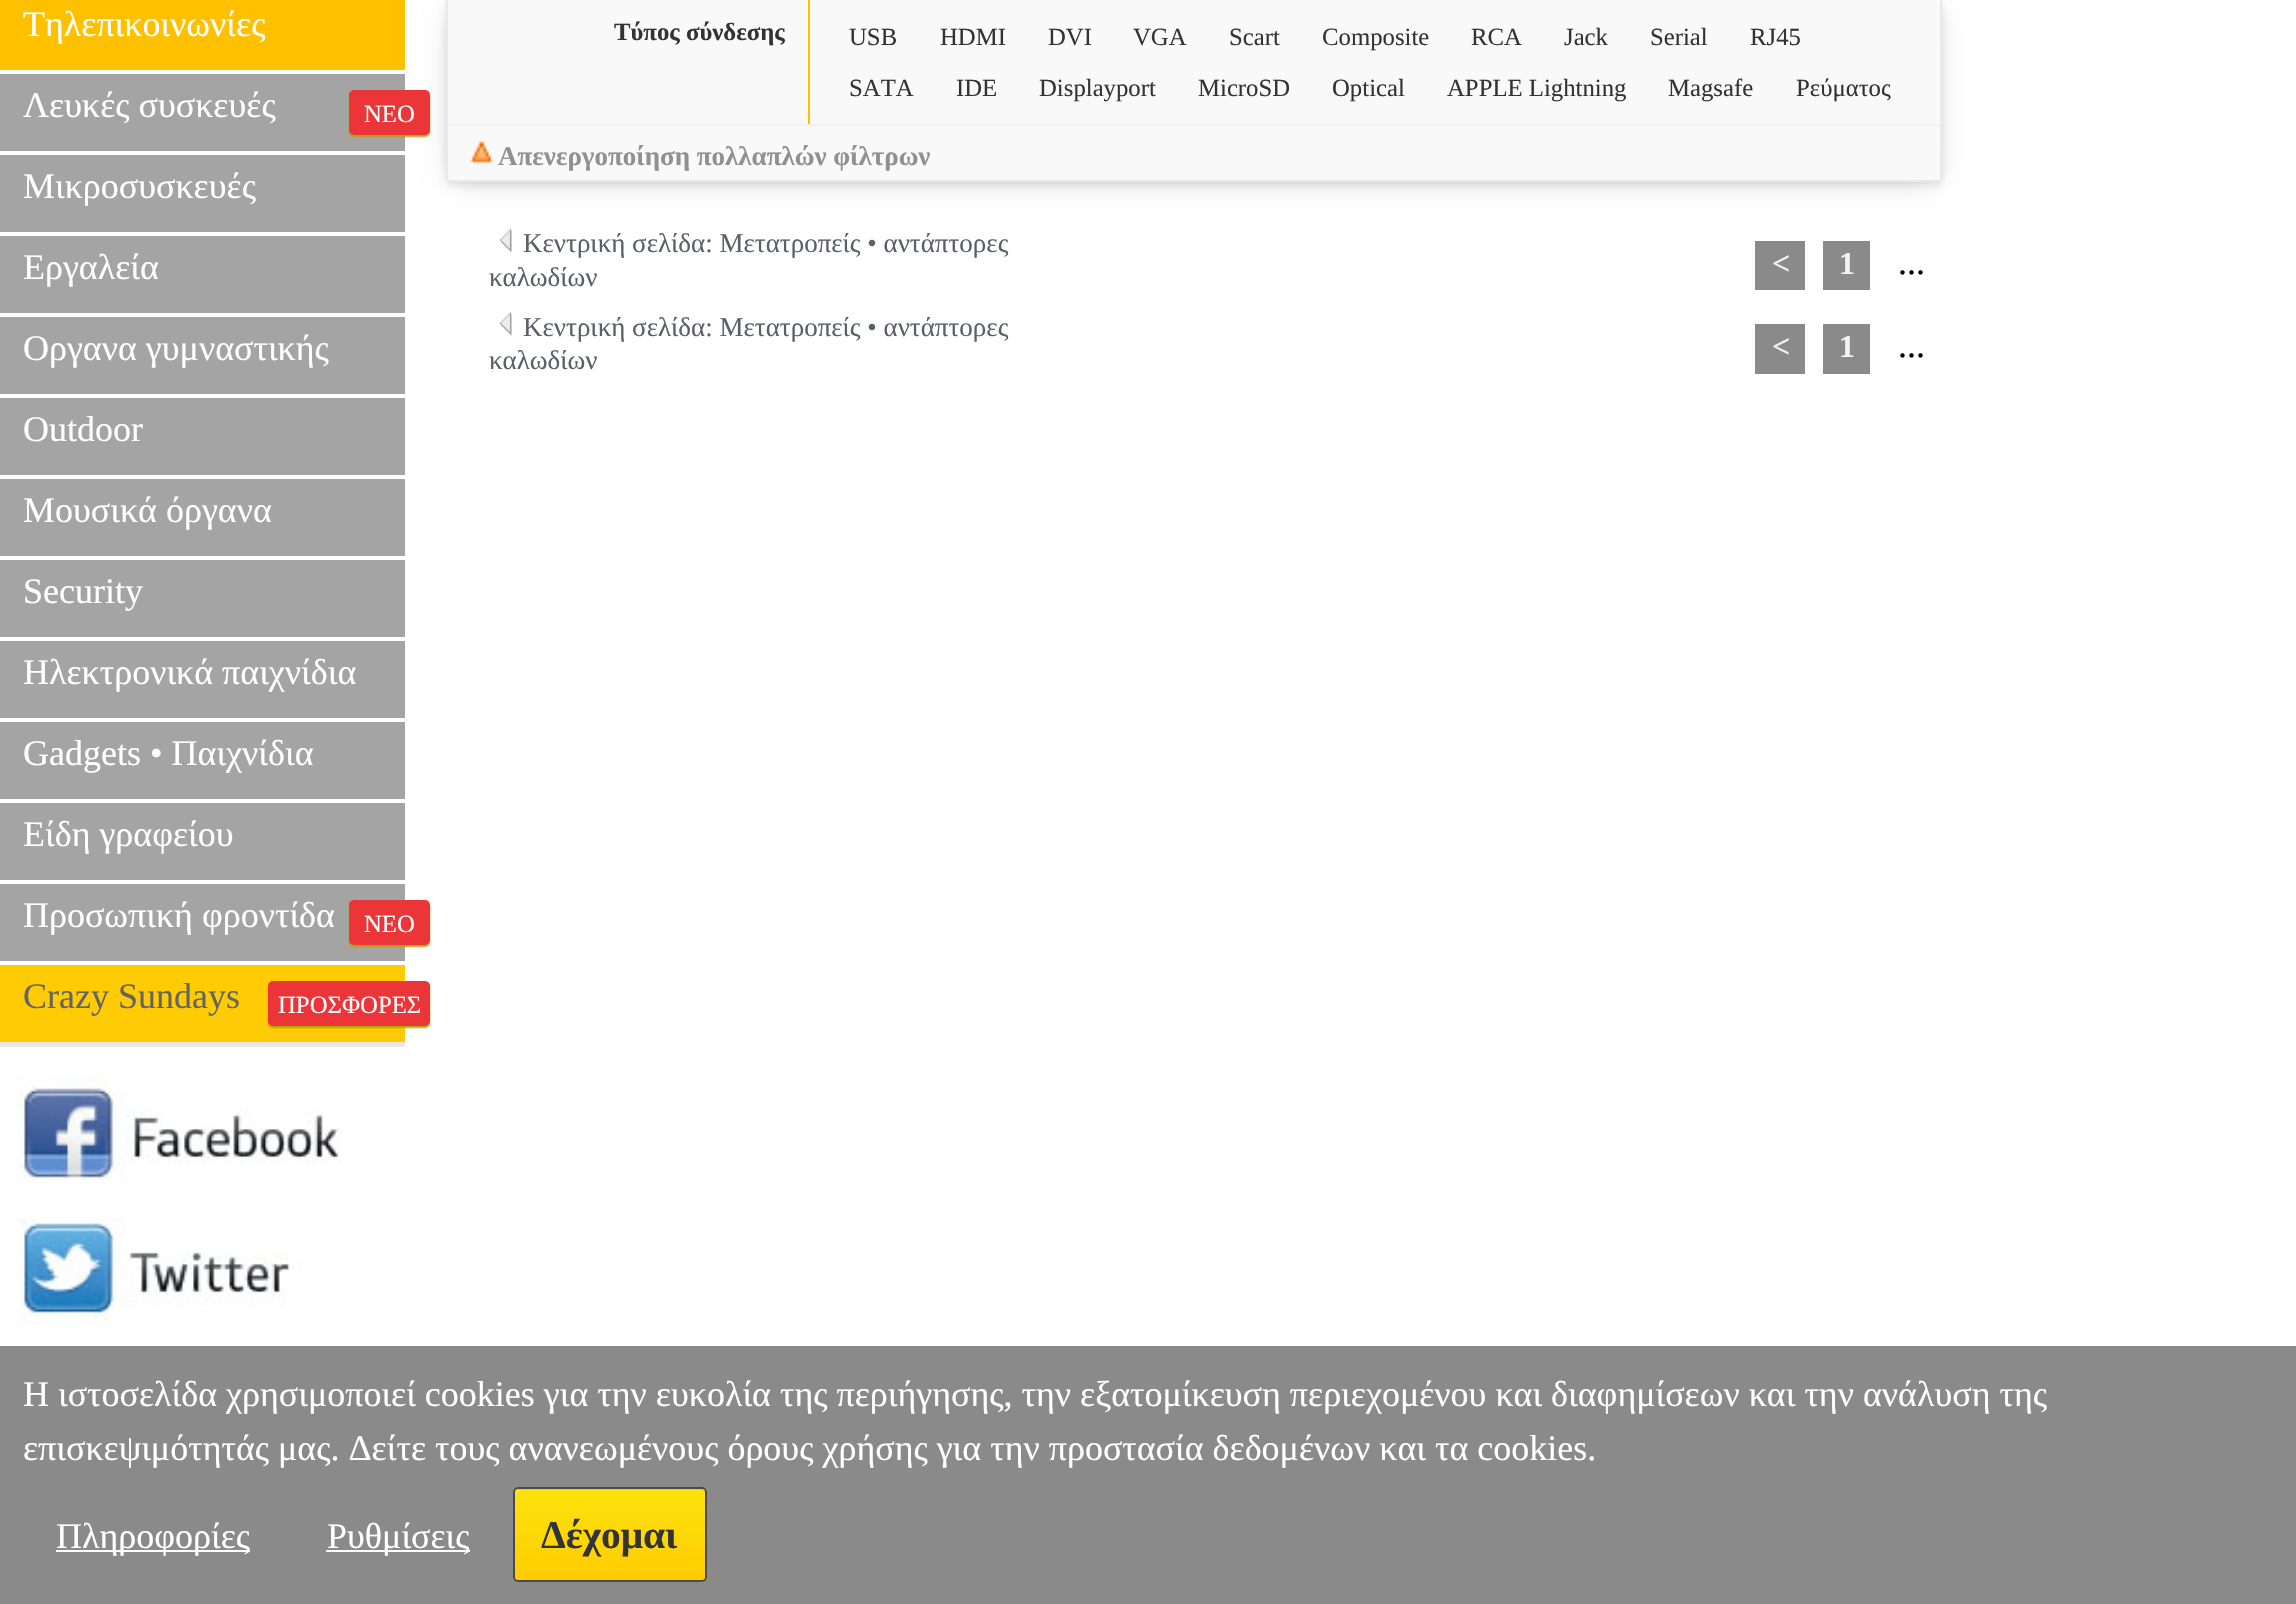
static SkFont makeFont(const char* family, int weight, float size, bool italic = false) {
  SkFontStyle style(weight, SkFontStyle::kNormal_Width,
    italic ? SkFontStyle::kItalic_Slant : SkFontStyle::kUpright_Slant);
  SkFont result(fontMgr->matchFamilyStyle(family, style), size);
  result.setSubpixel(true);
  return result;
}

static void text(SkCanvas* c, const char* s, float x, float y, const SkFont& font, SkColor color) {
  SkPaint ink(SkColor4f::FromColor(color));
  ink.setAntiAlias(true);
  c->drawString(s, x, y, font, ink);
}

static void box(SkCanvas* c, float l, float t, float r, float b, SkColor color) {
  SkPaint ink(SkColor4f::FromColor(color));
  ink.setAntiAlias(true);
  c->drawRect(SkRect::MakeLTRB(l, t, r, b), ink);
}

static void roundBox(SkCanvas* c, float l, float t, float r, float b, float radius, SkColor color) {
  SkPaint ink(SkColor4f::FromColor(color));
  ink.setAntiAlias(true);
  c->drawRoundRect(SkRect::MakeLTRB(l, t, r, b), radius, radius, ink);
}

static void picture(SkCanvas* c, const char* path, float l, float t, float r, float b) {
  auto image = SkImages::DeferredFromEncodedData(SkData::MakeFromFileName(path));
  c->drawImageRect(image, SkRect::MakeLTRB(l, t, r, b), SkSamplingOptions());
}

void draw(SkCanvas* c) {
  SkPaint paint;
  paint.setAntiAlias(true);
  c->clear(0xffffffff);
  box(c, 0, 0, 405, 70, 0xffffc000);
  SkFont face1 = makeFont("Liberation Serif", 400, 36);
  text(c, "Τηλεπικοινωνίες", 23, 36, face1, 0xffffffff);
  box(c, 0, 74, 405, 151, 0xffa4a4a5);
  text(c, "Λευκές συσκευές", 23, 117, face1, 0xffffffff);
  paint.setColor(0xffb5a001);
  paint.setMaskFilter(SkMaskFilter::MakeBlur(kNormal_SkBlurStyle, 1));
  c->drawRoundRect(SkRect::MakeLTRB(349, 92, 430, 137), 5, 5, paint);
  paint.setMaskFilter(nullptr);
  paint.setColor(0x33000000);
  paint.setMaskFilter(SkMaskFilter::MakeBlur(kNormal_SkBlurStyle, 16));
  c->drawRect(SkRect::MakeLTRB(457, 16, 1931, 176), paint);
  paint.setMaskFilter(nullptr);
  roundBox(c, 349, 90, 430, 135, 5, 0xffeb3539);
  SkFont face2 = makeFont("Liberation Serif", 400, 24.75f);
  text(c, "ΝΕΟ", 364, 122, face2, 0xffffffff);
  box(c, 0, 155, 405, 232, 0xffa4a4a5);
  text(c, "Μικροσυσκευές", 23, 198, face1, 0xffffffff);
  box(c, 0, 236, 405, 313, 0xffa4a4a5);
  text(c, "Εργαλεία", 23, 279, face1, 0xffffffff);
  box(c, 0, 317, 405, 394, 0xffa4a4a5);
  text(c, "Οργανα γυμναστικής", 23, 360, face1, 0xffffffff);
  box(c, 0, 398, 405, 475, 0xffa4a4a5);
  text(c, "Outdoor", 23, 441, face1, 0xffffffff);
  box(c, 0, 479, 405, 556, 0xffa4a4a5);
  text(c, "Μουσικά όργανα", 23, 522, face1, 0xffffffff);
  box(c, 0, 560, 405, 637, 0xffa4a4a5);
  text(c, "Security", 23, 603, face1, 0xffffffff);
  box(c, 0, 641, 405, 718, 0xffa4a4a5);
  text(c, "Ηλεκτρονικά παιχνίδια", 23, 684, face1, 0xffffffff);
  box(c, 0, 722, 405, 799, 0xffa4a4a5);
  text(c, "Gadgets • Παιχνίδια", 23, 765, face1, 0xffffffff);
  box(c, 0, 803, 405, 880, 0xffa4a4a5);
  text(c, "Είδη γραφείου", 23, 846, face1, 0xffffffff);
  box(c, 0, 884, 405, 961, 0xffa4a4a5);
  text(c, "Προσωπική φροντίδα", 23, 927, face1, 0xffffffff);
  paint.setColor(0xffb5a001);
  paint.setMaskFilter(SkMaskFilter::MakeBlur(kNormal_SkBlurStyle, 1));
  c->drawRoundRect(SkRect::MakeLTRB(349, 902, 430, 947), 5, 5, paint);
  paint.setMaskFilter(nullptr);
  roundBox(c, 349, 900, 430, 945, 5, 0xffeb3539);
  text(c, "ΝΕΟ", 364, 932, face2, 0xffffffff);
  box(c, 0, 965, 405, 1042, 0xffffcb05);
  box(c, 0, 1042, 405, 1047, 0xffe9e9e9);
  text(c, "Crazy Sundays", 23, 1008, face1, 0xff646464);
  paint.setMaskFilter(SkMaskFilter::MakeBlur(kNormal_SkBlurStyle, 1));
  c->drawRoundRect(SkRect::MakeLTRB(268, 983, 430, 1028), 5, 5, paint);
  paint.setMaskFilter(nullptr);
  roundBox(c, 268, 981, 430, 1026, 5, 0xffeb3539);
  text(c, "ΠΡΟΣΦΟΡΕΣ", 278, 1013, face2, 0xffffffff);
  picture(c, "img_01.png", 18, 1074, 396, 1346);
  paint.setColor(0x1a000000);
  paint.setMaskFilter(SkMaskFilter::MakeBlur(kNormal_SkBlurStyle, 3.5f));
  c->drawRoundRect(SkRect::MakeLTRB(446, 2, 1942, 185), 5, 5, paint);
  paint.setMaskFilter(nullptr);
  paint.setColor(0xfff9f9f9);
  c->drawPath(SkPathBuilder().moveTo(446, 0).lineTo(1942, 0).lineTo(1942, 177).cubicTo(1942, 180, 1940, 182, 1937, 182).lineTo(451, 182).cubicTo(448, 182, 446, 180, 446, 177).close().detach(), paint);
  box(c, 1940, 0, 1942, 180, 0xffe9e9e9);
  box(c, 448, 180, 1940, 182, 0xffe9e9e9);
  box(c, 446, 0, 448, 180, 0xffe9e9e9);
  box(c, 808, 0, 810, 126, 0xffffc000);
  box(c, 448, 124, 1940, 126, 0xfff2f2f2);
  SkFont face3 = makeFont("Liberation Serif", 700, 24.75f);
  text(c, "Τύπος σύνδεσης", 614, 40, face3, 0xff333333);
  text(c, "USB", 849, 45, face2, 0xff333333);
  text(c, "HDMI", 940, 45, face2, 0xff333333);
  text(c, "DVI", 1048, 45, face2, 0xff333333);
  text(c, "VGA", 1133, 45, face2, 0xff333333);
  text(c, "Scart", 1229, 45, face2, 0xff333333);
  text(c, "Composite", 1322, 45, face2, 0xff333333);
  text(c, "RCA", 1471, 45, face2, 0xff333333);
  text(c, "Jack", 1564, 45, face2, 0xff333333);
  text(c, "Serial", 1650, 45, face2, 0xff333333);
  text(c, "RJ45", 1750, 45, face2, 0xff333333);
  text(c, "SATA", 849, 96, face2, 0xff333333);
  text(c, "IDE", 956, 96, face2, 0xff333333);
  text(c, "Displayport", 1039, 96, face2, 0xff333333);
  text(c, "MicroSD", 1198, 96, face2, 0xff333333);
  text(c, "Optical", 1332, 96, face2, 0xff333333);
  text(c, "APPLE Lightning", 1447, 96, face2, 0xff333333);
  text(c, "Magsafe", 1668, 96, face2, 0xff333333);
  text(c, "Ρεύματος", 1796, 96, face2, 0xff333333);
  picture(c, "img_02.png", 470, 141, 493, 163);
  SkFont face4 = makeFont("Liberation Serif", 700, 27);
  text(c, "Απενεργοποίηση πολλαπλών φίλτρων", 498, 165, face4, 0xff909090);
  picture(c, "img_03.png", 499, 229, 512, 253);
  SkFont face5 = makeFont("Liberation Serif", 400, 27);
  text(c, "Κεντρική σελίδα: Μετατροπείς • αντάπτορες", 523, 252, face5, 0xff5b6067);
  text(c, "καλωδίων", 489, 286, face5, 0xff5b6067);
  box(c, 1755, 241, 1805, 290, 0xff8a8a8a);
  SkFont face6 = makeFont("Liberation Serif", 700, 32);
  text(c, "<", 1772, 274, face6, 0xfff2f2f2);
  box(c, 1823, 241, 1870, 290, 0xff8a8a8a);
  text(c, "1", 1839, 274, face6, 0xfff2f2f2);
  text(c, "...", 1898, 274, face1, 0xff000000);
  picture(c, "img_04.png", 499, 312, 512, 336);
  text(c, "Κεντρική σελίδα: Μετατροπείς • αντάπτορες", 523, 336, face5, 0xff5b6067);
  text(c, "καλωδίων", 489, 369, face5, 0xff5b6067);
  box(c, 1755, 324, 1805, 374, 0xff8a8a8a);
  text(c, "<", 1772, 357, face6, 0xfff2f2f2);
  box(c, 1823, 324, 1870, 374, 0xff8a8a8a);
  text(c, "1", 1839, 357, face6, 0xfff2f2f2);
  text(c, "...", 1898, 357, face1, 0xff000000);
  box(c, 0, 1346, 2296, 1604, 0xff8a8a8a);
  text(c, "Η ιστοσελίδα χρησιμοποιεί cookies για την ευκολία της περιήγησης, την εξατομίκευση περιεχομένου και διαφημίσεων και την ανάλυση της", 23, 1406, face1, 0xffffffff);
  text(c, "επισκεψιμότητάς μας. Δείτε τους ανανεωμένους όρους χρήσης για την προστασία δεδομένων και τα cookies.", 23, 1460, face1, 0xffffffff);
  box(c, 56, 1550, 250, 1552, 0xffffffff);
  text(c, "Πληροφορίες", 56, 1548, face1, 0xffffffff);
  box(c, 326, 1550, 470, 1552, 0xffffffff);
  text(c, "Ρυθμίσεις", 327, 1548, face1, 0xffffffff);
  c->save();
  c->clipPath(SkPathBuilder().moveTo(518, 1487).lineTo(702, 1487).cubicTo(705, 1487, 707, 1489, 707, 1492).lineTo(707, 1577).cubicTo(707, 1580, 705, 1582, 702, 1582).lineTo(518, 1582).cubicTo(515, 1582, 513, 1580, 513, 1577).lineTo(513, 1492).cubicTo(513, 1489, 515, 1487, 518, 1487).close().detach(), true);
  {
    const SkColor colors[] = {0xffffcc00, 0xfffde20d};
    const float stops[] = {0, 1};
    const SkPoint ends[] = {{610, 1490}, {610, 1400}};
    paint.setShader(SkGradientShader::MakeLinear(ends, colors, stops, 2, SkTileMode::kClamp));
    paint.setAlpha(255);
  }
  c->drawRect(SkRect::MakeLTRB(513, 1487, 707, 1490), paint);
  {
    const SkColor colors[] = {0xffffcc00, 0xfffde20d};
    const float stops[] = {0, 1};
    const SkPoint ends[] = {{610, 1580}, {610, 1490}};
    paint.setShader(SkGradientShader::MakeLinear(ends, colors, stops, 2, SkTileMode::kClamp));
    paint.setAlpha(255);
  }
  c->drawRect(SkRect::MakeLTRB(513, 1490, 707, 1580), paint);
  c->restore();
  paint.setStyle(SkPaint::kStroke_Style);
  paint.setStrokeWidth(2);
  paint.setShader(nullptr);
  paint.setColor(0xff4a4a4a);
  c->drawRoundRect(SkRect::MakeLTRB(514, 1488, 706, 1581), 4, 4, paint);
  SkFont face7 = makeFont("Liberation Serif", 700, 39.5f);
  text(c, "Δέχομαι", 541, 1548, face7, 0xff333333);
}
